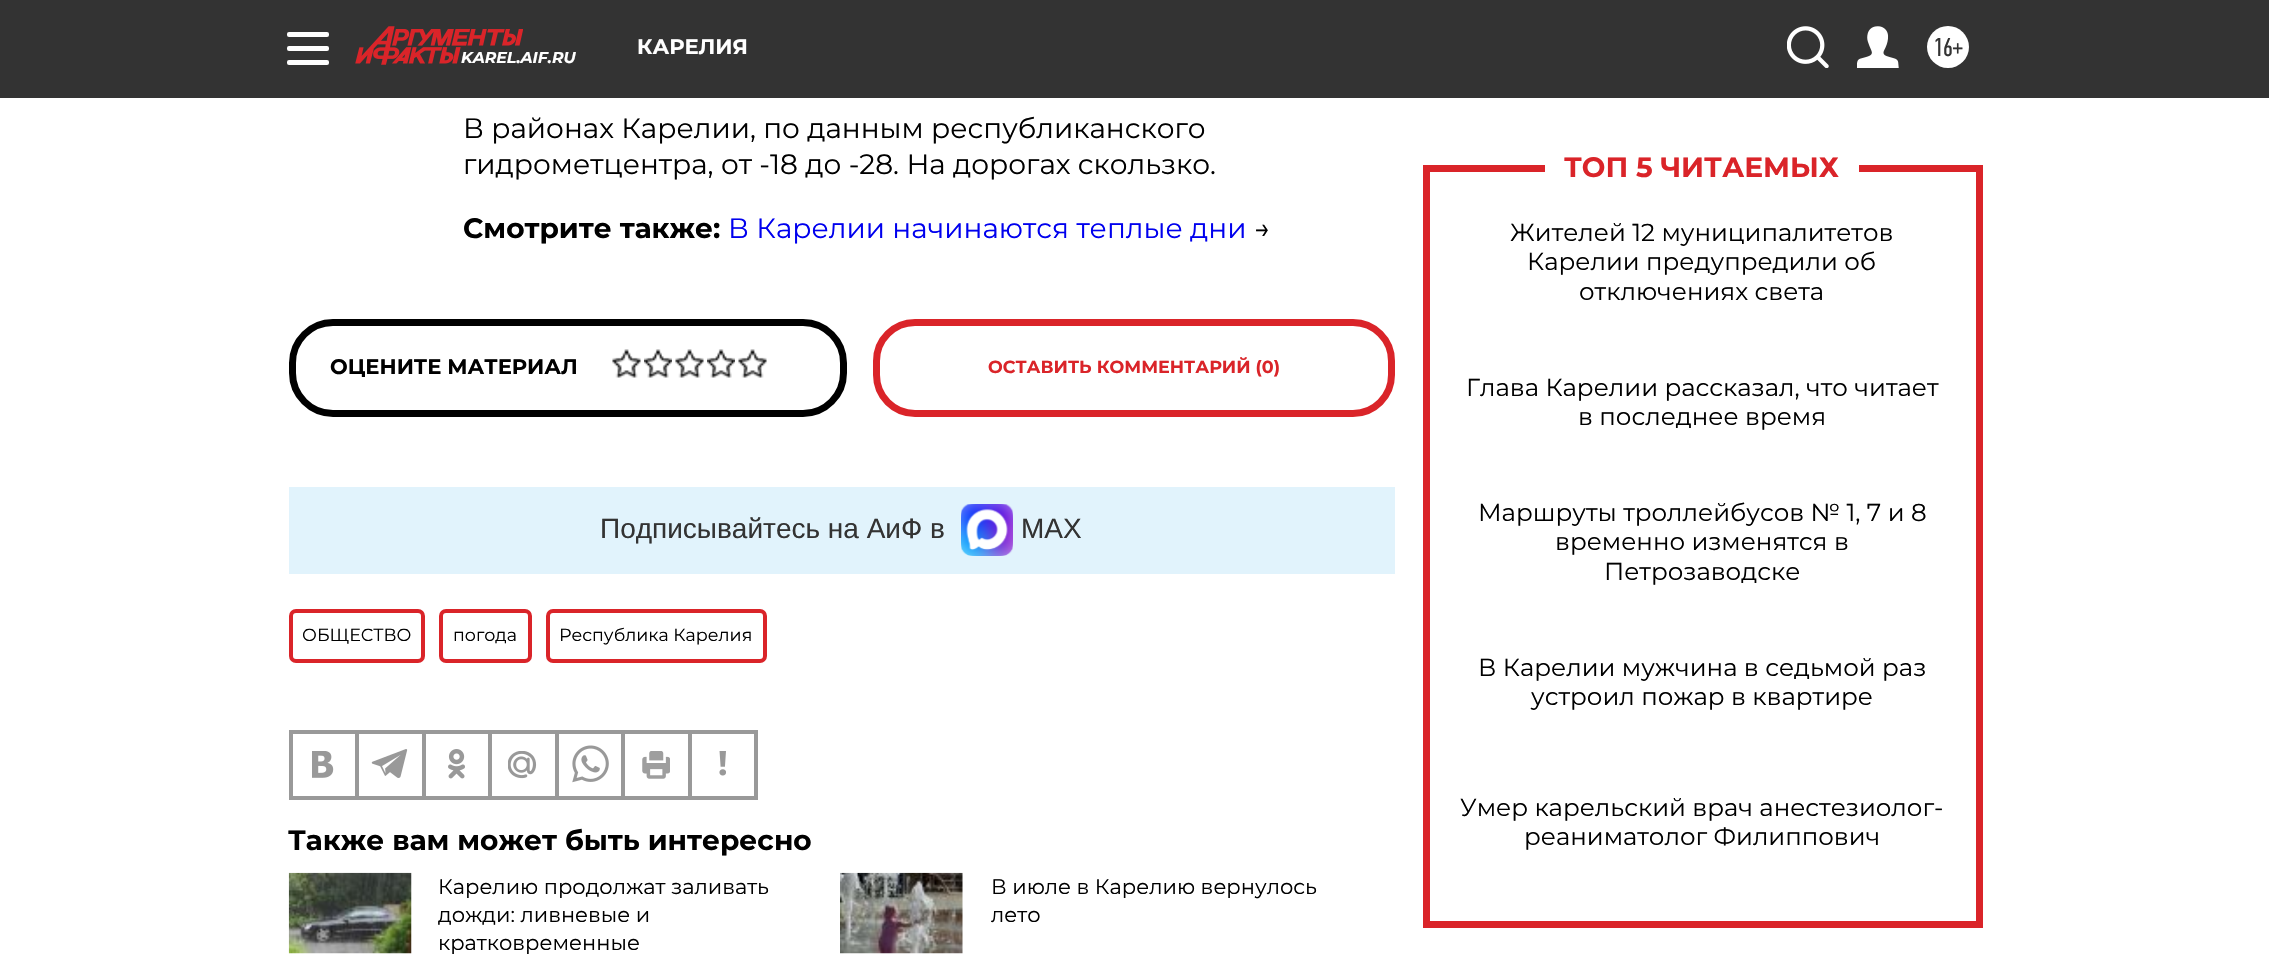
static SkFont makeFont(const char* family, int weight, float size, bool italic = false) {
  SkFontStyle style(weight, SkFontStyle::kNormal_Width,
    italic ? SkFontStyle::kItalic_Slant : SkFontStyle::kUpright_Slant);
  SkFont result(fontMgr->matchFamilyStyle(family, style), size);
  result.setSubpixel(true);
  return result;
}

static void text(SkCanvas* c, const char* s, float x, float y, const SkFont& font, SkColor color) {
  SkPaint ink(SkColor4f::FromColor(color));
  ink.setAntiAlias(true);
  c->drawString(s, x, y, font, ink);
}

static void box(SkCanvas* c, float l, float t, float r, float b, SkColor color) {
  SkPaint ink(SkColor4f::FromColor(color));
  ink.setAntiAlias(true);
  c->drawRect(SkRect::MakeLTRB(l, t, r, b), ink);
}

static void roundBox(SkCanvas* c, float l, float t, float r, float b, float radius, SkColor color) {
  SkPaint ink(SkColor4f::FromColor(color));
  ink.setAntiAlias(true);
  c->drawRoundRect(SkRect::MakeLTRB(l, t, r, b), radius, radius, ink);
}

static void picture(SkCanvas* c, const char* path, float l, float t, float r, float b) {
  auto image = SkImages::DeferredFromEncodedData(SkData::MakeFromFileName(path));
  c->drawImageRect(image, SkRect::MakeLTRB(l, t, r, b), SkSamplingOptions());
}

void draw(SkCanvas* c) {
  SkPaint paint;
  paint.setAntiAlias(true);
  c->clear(0xffffffff);
  box(c, 0, 0, 2269, 98, 0xff333333);
  roundBox(c, 287, 32, 329, 37, 2, 0xffffffff);
  roundBox(c, 287, 46, 329, 51, 2, 0xffffffff);
  roundBox(c, 287, 60, 329, 65, 2, 0xffffffff);
  SkFont face1 = makeFont("Montserrat", 700, 21);
  text(c, "КАРЕЛИЯ", 637, 54, face1, 0xffffffff);
  picture(c, "img_01.png", 1787, 26, 1829, 68);
  picture(c, "img_02.png", 1857, 26, 1899, 68);
  paint.setColor(0xffffffff);
  c->drawCircle(1948, 47, 21, paint);
  SkFont face2 = makeFont("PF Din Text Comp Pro", 400, 26);
  text(c, "16+", 1933, 56, face2, 0xff333333);
  picture(c, "img_03.png", 355, 26, 523, 65);
  SkFont face3 = makeFont("Montserrat", 700, 15.75f, true);
  text(c, "KAREL.AIF.RU", 461, 63, face3, 0xffffffff);
  SkFont face4 = makeFont("Montserrat", 400, 28);
  text(c, "В районах Карелии, по данным республиканского", 463, 138, face4, 0xff000000);
  text(c, "гидрометцентра, от -18 до -28. На дорогах скользко.", 463, 174, face4, 0xff000000);
  SkFont face5 = makeFont("Montserrat", 700, 28);
  text(c, "Смотрите также:", 463, 238, face5, 0xff000000);
  text(c, "В Карелии начинаются теплые дни", 728, 238, face4, 0xff0000ee);
  text(c, "→", 1254, 238, face4, 0xff000000);
  paint.setStyle(SkPaint::kStroke_Style);
  paint.setStrokeWidth(7);
  paint.setColor(0xff000000);
  c->drawRoundRect(SkRect::MakeLTRB(292.5f, 322.5f, 843.5f, 413.5f), 40.5f, 40.5f, paint);
  text(c, "ОЦЕНИТЕ МАТЕРИАЛ", 330, 374, face1, 0xff000000);
  picture(c, "img_04.png", 612, 349, 641, 378);
  picture(c, "img_05.png", 644, 349, 672, 378);
  picture(c, "img_04.png", 675, 349, 704, 378);
  picture(c, "img_05.png", 707, 349, 735, 378);
  picture(c, "img_06.png", 738, 349, 767, 378);
  paint.setColor(0xffda2429);
  c->drawRoundRect(SkRect::MakeLTRB(876.5f, 322.5f, 1391.5f, 413.5f), 38.5f, 38.5f, paint);
  SkFont face6 = makeFont("Montserrat", 700, 17.5f);
  text(c, "ОСТАВИТЬ КОММЕНТАРИЙ (0)", 988, 373, face6, 0xffda2429);
  box(c, 289, 487, 1395, 574, 0xffe1f3fc);
  SkFont face7 = makeFont("Liberation Sans", 400, 28);
  text(c, "Подписывайтесь на АиФ в", 600, 538, face7, 0xff333333);
  picture(c, "img_07.png", 961, 504, 1013, 556);
  text(c, "MAX", 1021, 538, face7, 0xff333333);
  paint.setStrokeWidth(4);
  c->drawRoundRect(SkRect::MakeLTRB(291, 611, 423, 661), 5, 5, paint);
  SkFont face8 = makeFont("Montserrat", 400, 17.5f);
  text(c, "ОБЩЕСТВО", 302, 641, face8, 0xff000000);
  c->drawRoundRect(SkRect::MakeLTRB(441, 611, 530, 661), 5, 5, paint);
  text(c, "погода", 453, 641, face8, 0xff000000);
  c->drawRoundRect(SkRect::MakeLTRB(548, 611, 765, 661), 5, 5, paint);
  text(c, "Республика Карелия", 559, 641, face8, 0xff000000);
  paint.setStrokeWidth(2);
  paint.setColor(0xff999999);
  c->drawRect(SkRect::MakeLTRB(290, 731, 757, 799), paint);
  c->drawRect(SkRect::MakeLTRB(292, 733, 356, 797), paint);
  picture(c, "img_08.png", 312, 751, 334, 778);
  c->drawRect(SkRect::MakeLTRB(358, 733, 423, 797), paint);
  picture(c, "img_09.png", 371, 749, 408, 778);
  c->drawRect(SkRect::MakeLTRB(425, 733, 489, 797), paint);
  picture(c, "img_10.png", 448, 749, 465, 779);
  c->drawRect(SkRect::MakeLTRB(491, 733, 556, 797), paint);
  picture(c, "img_11.png", 508, 751, 537, 779);
  c->drawRect(SkRect::MakeLTRB(558, 733, 622, 797), paint);
  picture(c, "img_12.png", 572, 745, 609, 783);
  c->drawRect(SkRect::MakeLTRB(624, 733, 689, 797), paint);
  picture(c, "img_13.png", 642, 751, 670, 779);
  c->drawRect(SkRect::MakeLTRB(691, 733, 755, 797), paint);
  picture(c, "img_14.png", 719, 751, 726, 776);
  text(c, "Также вам может быть интересно", 288, 850, face5, 0xff000000);
  picture(c, "img_15.png", 288, 872, 412, 954);
  SkFont face9 = makeFont("Montserrat", 400, 21);
  text(c, "Карелию продолжат заливать", 438, 894, face9, 0xff000000);
  text(c, "дожди: ливневые и", 438, 922, face9, 0xff000000);
  text(c, "кратковременные", 438, 950, face9, 0xff000000);
  picture(c, "img_16.png", 840, 872, 963, 954);
  text(c, "В июле в Карелию вернулось", 991, 894, face9, 0xff000000);
  text(c, "лето", 991, 922, face9, 0xff000000);
  box(c, 1976, 165, 1983, 928, 0xffda2429);
  box(c, 1423, 921, 1983, 928, 0xffda2429);
  box(c, 1423, 165, 1430, 928, 0xffda2429);
  box(c, 1423, 165, 1545, 172, 0xffda2429);
  text(c, "ТОП 5 ЧИТАЕМЫХ", 1564, 177, face5, 0xffda2429);
  box(c, 1859, 165, 1983, 172, 0xffda2429);
  SkFont face10 = makeFont("Montserrat", 400, 24.5f);
  text(c, "Жителей 12 муниципалитетов", 1510, 241, face10, 0xff000000);
  text(c, "Карелии предупредили об", 1527, 270, face10, 0xff000000);
  text(c, "отключениях света", 1579, 300, face10, 0xff000000);
  text(c, "Глава Карелии рассказал, что читает", 1466, 396, face10, 0xff000000);
  text(c, "в последнее время", 1578, 425, face10, 0xff000000);
  text(c, "Маршруты троллейбусов № 1, 7 и 8", 1478, 521, face10, 0xff000000);
  text(c, "временно изменятся в", 1555, 550, face10, 0xff000000);
  text(c, "Петрозаводске", 1604, 580, face10, 0xff000000);
  text(c, "В Карелии мужчина в седьмой раз", 1478, 676, face10, 0xff000000);
  text(c, "устроил пожар в квартире", 1531, 705, face10, 0xff000000);
  text(c, "Умер карельский врач анестезиолог-", 1460, 816, face10, 0xff000000);
  text(c, "реаниматолог Филиппович", 1524, 845, face10, 0xff000000);
}
